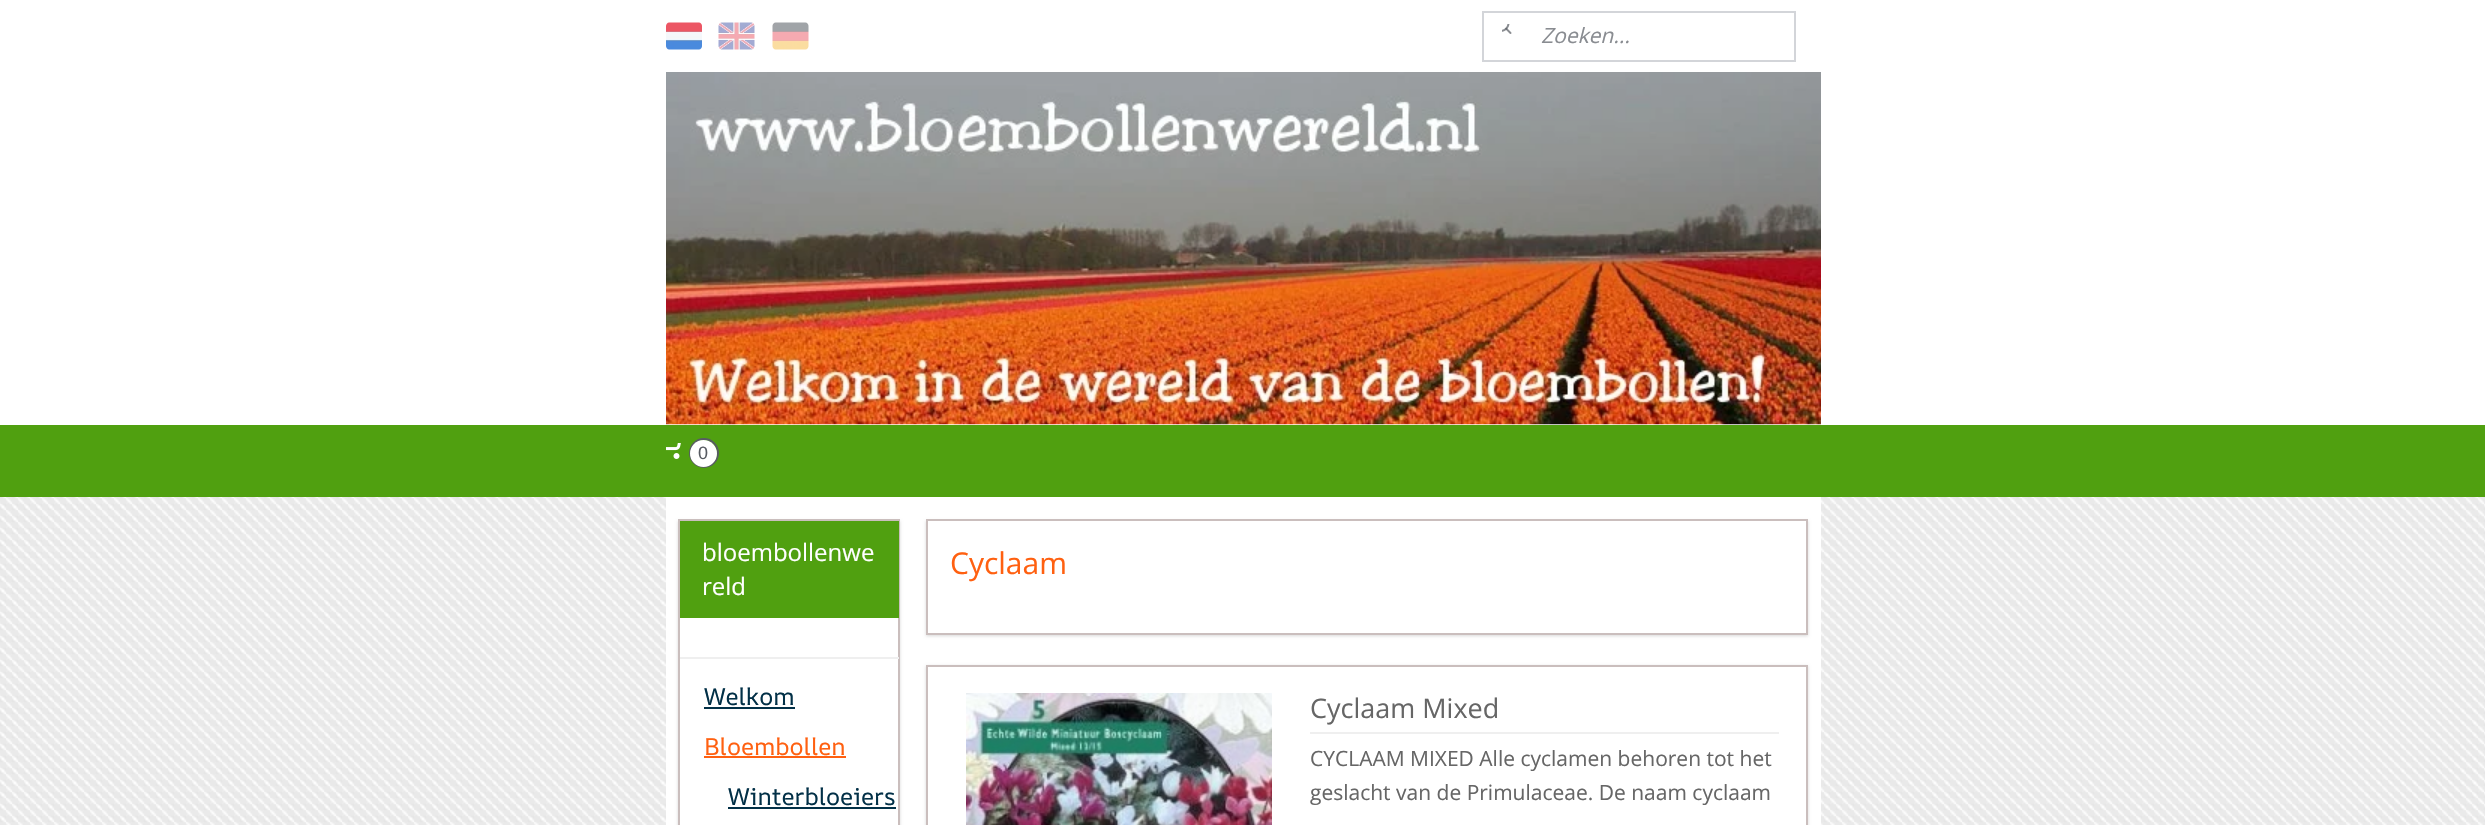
static SkFont makeFont(const char* family, int weight, float size, bool italic = false) {
  SkFontStyle style(weight, SkFontStyle::kNormal_Width,
    italic ? SkFontStyle::kItalic_Slant : SkFontStyle::kUpright_Slant);
  SkFont result(fontMgr->matchFamilyStyle(family, style), size);
  result.setSubpixel(true);
  return result;
}

static void text(SkCanvas* c, const char* s, float x, float y, const SkFont& font, SkColor color) {
  SkPaint ink(SkColor4f::FromColor(color));
  ink.setAntiAlias(true);
  c->drawString(s, x, y, font, ink);
}

static void box(SkCanvas* c, float l, float t, float r, float b, SkColor color) {
  SkPaint ink(SkColor4f::FromColor(color));
  ink.setAntiAlias(true);
  c->drawRect(SkRect::MakeLTRB(l, t, r, b), ink);
}

static void picture(SkCanvas* c, const char* path, float l, float t, float r, float b) {
  auto image = SkImages::DeferredFromEncodedData(SkData::MakeFromFileName(path));
  c->drawImageRect(image, SkRect::MakeLTRB(l, t, r, b), SkSamplingOptions());
}

void draw(SkCanvas* c) {
  SkPaint paint;
  paint.setAntiAlias(true);
  c->clear(0xffffffff);
  picture(c, "img_01.png", 666, 22, 702, 50);
  picture(c, "img_02.png", 718, 22, 755, 50);
  picture(c, "img_03.png", 772, 22, 809, 50);
  paint.setStyle(SkPaint::kStroke_Style);
  paint.setStrokeWidth(2);
  paint.setColor(0xffd3d5d9);
  c->drawRect(SkRect::MakeLTRB(1483, 12, 1795, 61), paint);
  picture(c, "img_04.png", 1502, 24, 1512, 34);
  SkFont face1 = makeFont("Open Sans", 400, 21, true);
  text(c, "Zoeken...", 1541, 43, face1, 0xff898c91);
  picture(c, "img_05.png", 666, 72, 1821, 425);
  box(c, 0, 425, 2485, 497, 0xff50a010);
  picture(c, "img_06.png", 666, 443, 681, 459);
  paint.setColor(0xff575b62);
  c->drawCircle(704, 453, 14, paint);
  paint.setStyle(SkPaint::kFill_Style);
  paint.setColor(0xffffffff);
  c->drawCircle(703.5f, 453.5f, 13.5f, paint);
  SkFont face2 = makeFont("Liberation Sans", 400, 18);
  text(c, "0", 698, 459, face2, 0xff575b62);
  picture(c, "img_07.png", 0, 497, 2485, 825);
  box(c, 666, 497, 1821, 825, 0xffffffff);
  c->save();
  c->clipPath(SkPathBuilder(SkPathFillType::kEvenOdd).moveTo(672, 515).lineTo(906, 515).lineTo(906, 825).lineTo(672, 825).close().moveTo(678, 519).lineTo(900, 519).lineTo(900, 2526).lineTo(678, 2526).close().detach(), true);
  paint.setColor(0x26000000);
  paint.setMaskFilter(SkMaskFilter::MakeBlur(kNormal_SkBlurStyle, 1.5f));
  c->drawRect(SkRect::MakeLTRB(678, 521, 900, 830), paint);
  paint.setMaskFilter(nullptr);
  c->restore();
  paint.setStyle(SkPaint::kStroke_Style);
  paint.setColor(0xffcabebd);
  c->drawRect(SkRect::MakeLTRB(679, 520, 899, 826), paint);
  box(c, 680, 521, 899, 618, 0xff50a010);
  SkFont face3 = makeFont("Open Sans", 400, 24);
  text(c, "bloembollenwe", 702, 561, face3, 0xffffffff);
  text(c, "reld", 702, 595, face3, 0xffffffff);
  box(c, 680, 657, 899, 659, 0xffefefef);
  SkFont face4 = makeFont("AR One Sans", 400, 24);
  text(c, "Welkom", 704, 705, face4, 0xff023047);
  box(c, 704, 707, 795, 709, 0xff023047);
  text(c, "Bloembollen", 704, 755, face4, 0xffff6010);
  box(c, 704, 756, 846, 758, 0xffff6010);
  text(c, "Winterbloeiers", 728, 805, face4, 0xff023047);
  box(c, 728, 807, 896, 809, 0xff023047);
  c->save();
  c->clipPath(SkPathBuilder(SkPathFillType::kEvenOdd).moveTo(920, 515).lineTo(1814, 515).lineTo(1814, 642).lineTo(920, 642).close().moveTo(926, 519).lineTo(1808, 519).lineTo(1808, 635).lineTo(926, 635).close().detach(), true);
  paint.setStyle(SkPaint::kFill_Style);
  paint.setColor(0x26000000);
  paint.setMaskFilter(SkMaskFilter::MakeBlur(kNormal_SkBlurStyle, 1.5f));
  c->drawRect(SkRect::MakeLTRB(926, 521, 1808, 636), paint);
  paint.setMaskFilter(nullptr);
  c->restore();
  paint.setStyle(SkPaint::kStroke_Style);
  paint.setColor(0xffcabebd);
  c->drawRect(SkRect::MakeLTRB(927, 520, 1807, 634), paint);
  SkFont face5 = makeFont("Open Sans", 400, 30);
  text(c, "Cyclaam", 950, 574, face5, 0xffff6010);
  c->save();
  c->clipPath(SkPathBuilder(SkPathFillType::kEvenOdd).moveTo(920, 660).lineTo(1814, 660).lineTo(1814, 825).lineTo(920, 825).close().moveTo(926, 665).lineTo(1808, 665).lineTo(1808, 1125).lineTo(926, 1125).close().detach(), true);
  paint.setStyle(SkPaint::kFill_Style);
  paint.setColor(0x26000000);
  paint.setMaskFilter(SkMaskFilter::MakeBlur(kNormal_SkBlurStyle, 1.5f));
  c->drawRect(SkRect::MakeLTRB(926, 666, 1808, 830), paint);
  paint.setMaskFilter(nullptr);
  c->restore();
  paint.setStyle(SkPaint::kStroke_Style);
  paint.setColor(0xffcabebd);
  c->drawRect(SkRect::MakeLTRB(927, 666, 1807, 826), paint);
  picture(c, "img_08.png", 966, 693, 1272, 825);
  box(c, 1310, 732, 1779, 734, 0xffefefef);
  SkFont face6 = makeFont("Open Sans", 400, 27);
  text(c, "Cyclaam Mixed", 1310, 718, face6, 0xff666666);
  SkFont face7 = makeFont("Open Sans", 400, 21);
  text(c, "CYCLAAM MIXED Alle cyclamen behoren tot het", 1310, 766, face7, 0xff666666);
  text(c, "geslacht van de Primulaceae. De naam cyclaam", 1310, 800, face7, 0xff666666);
}
